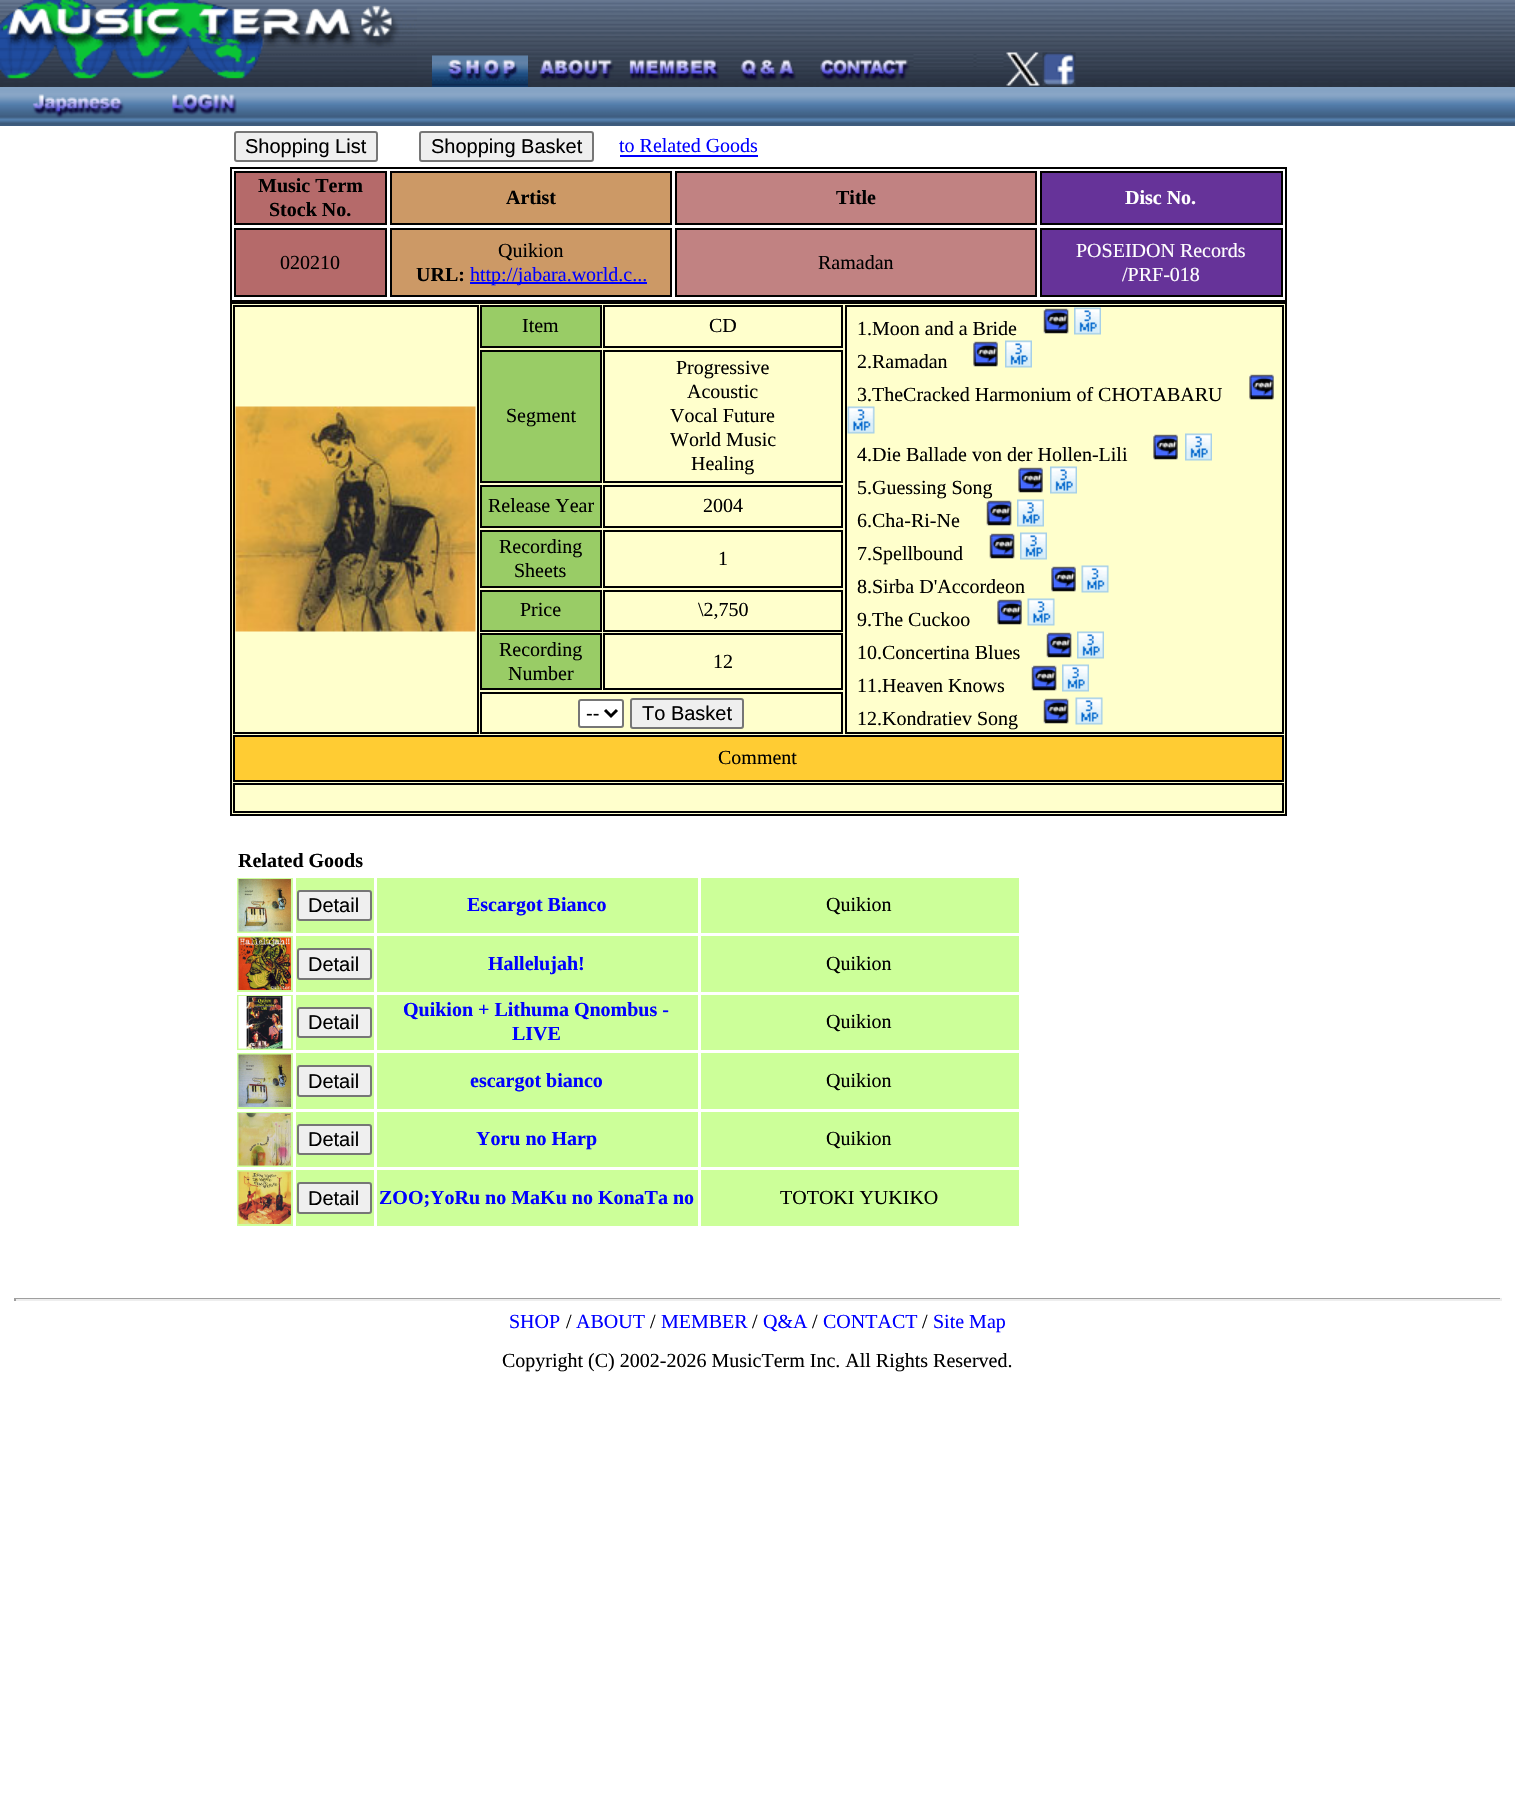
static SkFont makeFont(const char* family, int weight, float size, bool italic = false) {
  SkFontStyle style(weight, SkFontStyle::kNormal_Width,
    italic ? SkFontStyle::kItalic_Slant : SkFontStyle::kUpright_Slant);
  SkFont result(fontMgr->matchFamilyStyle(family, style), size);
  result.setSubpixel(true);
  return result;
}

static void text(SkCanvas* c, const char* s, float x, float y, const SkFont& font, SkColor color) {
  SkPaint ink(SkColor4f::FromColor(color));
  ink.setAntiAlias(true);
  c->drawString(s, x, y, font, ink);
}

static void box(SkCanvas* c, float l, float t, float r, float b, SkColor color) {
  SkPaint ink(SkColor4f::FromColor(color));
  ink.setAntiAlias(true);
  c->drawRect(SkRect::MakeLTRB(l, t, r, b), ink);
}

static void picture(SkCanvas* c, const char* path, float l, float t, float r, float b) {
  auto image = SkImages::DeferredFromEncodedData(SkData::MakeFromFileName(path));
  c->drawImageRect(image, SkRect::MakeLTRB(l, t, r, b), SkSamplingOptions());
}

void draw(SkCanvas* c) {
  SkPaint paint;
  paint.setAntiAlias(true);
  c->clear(0xffffffff);
  picture(c, "img_01.png", 0, 0, 432, 87);
  picture(c, "img_02.png", 0, 0, 417, 79);
  picture(c, "img_03.png", 432, 0, 1515, 51);
  picture(c, "img_04.png", 432, 51, 528, 56);
  picture(c, "img_05.png", 432, 55, 528, 87);
  picture(c, "img_06.png", 528, 51, 624, 87);
  picture(c, "img_07.png", 539, 59, 614, 80);
  picture(c, "img_06.png", 624, 51, 720, 87);
  picture(c, "img_08.png", 629, 59, 719, 80);
  picture(c, "img_09.png", 720, 51, 816, 87);
  picture(c, "img_10.png", 740, 59, 796, 81);
  picture(c, "img_11.png", 816, 51, 912, 87);
  picture(c, "img_12.png", 820, 59, 910, 80);
  picture(c, "img_13.png", 912, 51, 1104, 87);
  picture(c, "img_14.png", 913, 54, 974, 67);
  picture(c, "img_15.png", 976, 54, 1004, 67);
  picture(c, "img_16.png", 1006, 52, 1040, 86);
  picture(c, "img_17.png", 1042, 52, 1076, 86);
  picture(c, "img_18.png", 1104, 51, 1515, 87);
  picture(c, "img_19.png", 0, 87, 30, 126);
  picture(c, "img_20.png", 30, 87, 126, 126);
  picture(c, "img_21.png", 32, 94, 125, 118);
  picture(c, "img_22.png", 126, 87, 156, 126);
  picture(c, "img_23.png", 156, 87, 252, 126);
  picture(c, "img_24.png", 172, 94, 237, 115);
  picture(c, "img_25.png", 252, 87, 432, 126);
  picture(c, "img_26.png", 432, 87, 528, 126);
  picture(c, "img_27.png", 528, 87, 624, 126);
  picture(c, "img_27.png", 624, 87, 720, 126);
  picture(c, "img_28.png", 720, 87, 816, 126);
  picture(c, "img_29.png", 816, 87, 912, 126);
  picture(c, "img_30.png", 912, 87, 1008, 126);
  picture(c, "img_31.png", 1008, 87, 1104, 126);
  picture(c, "img_32.png", 1104, 87, 1515, 126);
  paint.setColor(0xffefefef);
  c->drawRoundRect(SkRect::MakeLTRB(235, 132, 377, 161), 2, 2, paint);
  paint.setStyle(SkPaint::kStroke_Style);
  paint.setStrokeWidth(2);
  paint.setColor(0xff767676);
  c->drawRoundRect(SkRect::MakeLTRB(235, 132, 377, 161), 2, 2, paint);
  SkFont face1 = makeFont("Liberation Sans", 400, 20);
  text(c, "Shopping List", 245, 153, face1, 0xff000000);
  paint.setStyle(SkPaint::kFill_Style);
  paint.setColor(0xffefefef);
  c->drawRoundRect(SkRect::MakeLTRB(420, 132, 593, 161), 2, 2, paint);
  paint.setStyle(SkPaint::kStroke_Style);
  paint.setColor(0xff767676);
  c->drawRoundRect(SkRect::MakeLTRB(420, 132, 593, 161), 2, 2, paint);
  text(c, "Shopping Basket", 431, 153, face1, 0xff000000);
  SkFont face2 = makeFont("Liberation Serif", 400, 20);
  text(c, "to Related Goods", 619, 152, face2, 0xff0000ff);
  box(c, 620, 155, 758, 157, 0xff0000ff);
  paint.setColor(0xff000000);
  c->drawRect(SkRect::MakeLTRB(231, 168, 1286, 301), paint);
  paint.setStyle(SkPaint::kFill_Style);
  paint.setColor(0xffb56a6a);
  c->drawRect(SkRect::MakeLTRB(235, 172, 386, 224), paint);
  paint.setStyle(SkPaint::kStroke_Style);
  paint.setColor(0xff000000);
  c->drawRect(SkRect::MakeLTRB(235, 172, 386, 224), paint);
  SkFont face3 = makeFont("Liberation Serif", 700, 20);
  text(c, "Music Term", 258, 192, face3, 0xff000000);
  text(c, "Stock No.", 269, 216, face3, 0xff000000);
  paint.setStyle(SkPaint::kFill_Style);
  paint.setColor(0xffcc9966);
  c->drawRect(SkRect::MakeLTRB(391, 172, 671, 224), paint);
  paint.setStyle(SkPaint::kStroke_Style);
  paint.setColor(0xff000000);
  c->drawRect(SkRect::MakeLTRB(391, 172, 671, 224), paint);
  text(c, "Artist", 506, 204, face3, 0xff000000);
  paint.setStyle(SkPaint::kFill_Style);
  paint.setColor(0xffc18282);
  c->drawRect(SkRect::MakeLTRB(676, 172, 1036, 224), paint);
  paint.setStyle(SkPaint::kStroke_Style);
  paint.setColor(0xff000000);
  c->drawRect(SkRect::MakeLTRB(676, 172, 1036, 224), paint);
  text(c, "Title", 836, 204, face3, 0xff000000);
  paint.setStyle(SkPaint::kFill_Style);
  paint.setColor(0xff663399);
  c->drawRect(SkRect::MakeLTRB(1041, 172, 1282, 224), paint);
  paint.setStyle(SkPaint::kStroke_Style);
  paint.setColor(0xff000000);
  c->drawRect(SkRect::MakeLTRB(1041, 172, 1282, 224), paint);
  text(c, "Disc No.", 1125, 204, face3, 0xffffffff);
  paint.setStyle(SkPaint::kFill_Style);
  paint.setColor(0xffb56a6a);
  c->drawRect(SkRect::MakeLTRB(235, 229, 386, 296), paint);
  paint.setStyle(SkPaint::kStroke_Style);
  paint.setColor(0xff000000);
  c->drawRect(SkRect::MakeLTRB(235, 229, 386, 296), paint);
  text(c, "020210", 280, 269, face2, 0xff000000);
  paint.setStyle(SkPaint::kFill_Style);
  paint.setColor(0xffcc9966);
  c->drawRect(SkRect::MakeLTRB(391, 229, 671, 296), paint);
  paint.setStyle(SkPaint::kStroke_Style);
  paint.setColor(0xff000000);
  c->drawRect(SkRect::MakeLTRB(391, 229, 671, 296), paint);
  text(c, "Quikion", 498, 257, face2, 0xff000000);
  text(c, "URL:", 416, 281, face3, 0xff000000);
  box(c, 470, 282, 647, 284, 0xff0000ff);
  text(c, "http://jabara.world.c...", 470, 281, face2, 0xff0000ff);
  paint.setStyle(SkPaint::kFill_Style);
  paint.setColor(0xffc18282);
  c->drawRect(SkRect::MakeLTRB(676, 229, 1036, 296), paint);
  paint.setStyle(SkPaint::kStroke_Style);
  paint.setColor(0xff000000);
  c->drawRect(SkRect::MakeLTRB(676, 229, 1036, 296), paint);
  text(c, "Ramadan", 818, 269, face2, 0xff000000);
  paint.setStyle(SkPaint::kFill_Style);
  paint.setColor(0xff663399);
  c->drawRect(SkRect::MakeLTRB(1041, 229, 1282, 296), paint);
  paint.setStyle(SkPaint::kStroke_Style);
  paint.setColor(0xff000000);
  c->drawRect(SkRect::MakeLTRB(1041, 229, 1282, 296), paint);
  text(c, "POSEIDON Records", 1076, 257, face2, 0xffffffff);
  text(c, "/PRF-018", 1122, 281, face2, 0xffffffff);
  paint.setStyle(SkPaint::kFill_Style);
  paint.setColor(0xffffffcc);
  c->drawRect(SkRect::MakeLTRB(231, 303, 1286, 815), paint);
  paint.setStyle(SkPaint::kStroke_Style);
  paint.setColor(0xff000000);
  c->drawRect(SkRect::MakeLTRB(231, 303, 1286, 815), paint);
  c->drawRect(SkRect::MakeLTRB(234, 306, 478, 733), paint);
  picture(c, "img_33.png", 235, 406, 476, 632);
  paint.setStyle(SkPaint::kFill_Style);
  paint.setColor(0xff99cc66);
  c->drawRect(SkRect::MakeLTRB(481, 306, 601, 347), paint);
  paint.setStyle(SkPaint::kStroke_Style);
  paint.setColor(0xff000000);
  c->drawRect(SkRect::MakeLTRB(481, 306, 601, 347), paint);
  text(c, "Item", 522, 332, face2, 0xff000000);
  c->drawRect(SkRect::MakeLTRB(604, 306, 842, 347), paint);
  text(c, "CD", 709, 332, face2, 0xff000000);
  c->drawRect(SkRect::MakeLTRB(846, 306, 1283, 733), paint);
  text(c, "1.Moon and a Bride", 857, 335, face2, 0xff000000);
  picture(c, "img_34.png", 1043, 308, 1069, 334);
  picture(c, "img_35.png", 1074, 307, 1101, 335);
  text(c, "2.Ramadan", 857, 368, face2, 0xff000000);
  picture(c, "img_36.png", 973, 341, 998, 367);
  picture(c, "img_37.png", 1005, 340, 1032, 368);
  text(c, "3.TheCracked Harmonium of CHOTABARU", 857, 401, face2, 0xff000000);
  picture(c, "img_38.png", 1249, 374, 1274, 400);
  picture(c, "img_39.png", 847, 406, 875, 434);
  text(c, "4.Die Ballade von der Hollen-Lili", 857, 461, face2, 0xff000000);
  picture(c, "img_38.png", 1153, 434, 1178, 460);
  picture(c, "img_35.png", 1185, 433, 1212, 461);
  text(c, "5.Guessing Song", 857, 494, face2, 0xff000000);
  picture(c, "img_38.png", 1018, 467, 1043, 493);
  picture(c, "img_35.png", 1050, 466, 1077, 494);
  text(c, "6.Cha-Ri-Ne", 857, 527, face2, 0xff000000);
  picture(c, "img_40.png", 986, 500, 1012, 526);
  picture(c, "img_37.png", 1017, 499, 1044, 527);
  text(c, "7.Spellbound", 857, 560, face2, 0xff000000);
  picture(c, "img_40.png", 989, 533, 1015, 559);
  picture(c, "img_41.png", 1020, 532, 1047, 560);
  text(c, "8.Sirba D'Accordeon", 857, 593, face2, 0xff000000);
  picture(c, "img_38.png", 1051, 566, 1076, 592);
  picture(c, "img_39.png", 1081, 565, 1109, 593);
  text(c, "9.The Cuckoo", 857, 626, face2, 0xff000000);
  picture(c, "img_42.png", 997, 599, 1022, 625);
  picture(c, "img_39.png", 1027, 598, 1055, 626);
  text(c, "10.Concertina Blues", 857, 659, face2, 0xff000000);
  picture(c, "img_34.png", 1046, 632, 1072, 658);
  picture(c, "img_35.png", 1077, 631, 1104, 659);
  text(c, "11.Heaven Knows", 857, 692, face2, 0xff000000);
  picture(c, "img_34.png", 1031, 665, 1057, 691);
  picture(c, "img_35.png", 1062, 664, 1089, 692);
  text(c, "12.Kondratiev Song", 857, 725, face2, 0xff000000);
  picture(c, "img_34.png", 1043, 698, 1069, 724);
  picture(c, "img_39.png", 1075, 697, 1103, 725);
  paint.setStyle(SkPaint::kFill_Style);
  paint.setColor(0xff99cc66);
  c->drawRect(SkRect::MakeLTRB(481, 351, 601, 482), paint);
  paint.setStyle(SkPaint::kStroke_Style);
  paint.setColor(0xff000000);
  c->drawRect(SkRect::MakeLTRB(481, 351, 601, 482), paint);
  text(c, "Segment", 506, 422, face2, 0xff000000);
  c->drawRect(SkRect::MakeLTRB(604, 351, 842, 482), paint);
  text(c, "Progressive", 676, 374, face2, 0xff000000);
  text(c, "Acoustic", 687, 398, face2, 0xff000000);
  text(c, "Vocal Future", 670, 422, face2, 0xff000000);
  text(c, "World Music", 670, 446, face2, 0xff000000);
  text(c, "Healing", 691, 470, face2, 0xff000000);
  paint.setStyle(SkPaint::kFill_Style);
  paint.setColor(0xff99cc66);
  c->drawRect(SkRect::MakeLTRB(481, 486, 601, 527), paint);
  paint.setStyle(SkPaint::kStroke_Style);
  paint.setColor(0xff000000);
  c->drawRect(SkRect::MakeLTRB(481, 486, 601, 527), paint);
  text(c, "Release Year", 488, 512, face2, 0xff000000);
  c->drawRect(SkRect::MakeLTRB(604, 486, 842, 527), paint);
  text(c, "2004", 703, 512, face2, 0xff000000);
  paint.setStyle(SkPaint::kFill_Style);
  paint.setColor(0xff99cc66);
  c->drawRect(SkRect::MakeLTRB(481, 531, 601, 587), paint);
  paint.setStyle(SkPaint::kStroke_Style);
  paint.setColor(0xff000000);
  c->drawRect(SkRect::MakeLTRB(481, 531, 601, 587), paint);
  text(c, "Recording", 499, 553, face2, 0xff000000);
  text(c, "Sheets", 514, 577, face2, 0xff000000);
  c->drawRect(SkRect::MakeLTRB(604, 531, 842, 587), paint);
  text(c, "1", 718, 565, face2, 0xff000000);
  paint.setStyle(SkPaint::kFill_Style);
  paint.setColor(0xff99cc66);
  c->drawRect(SkRect::MakeLTRB(481, 591, 601, 631), paint);
  paint.setStyle(SkPaint::kStroke_Style);
  paint.setColor(0xff000000);
  c->drawRect(SkRect::MakeLTRB(481, 591, 601, 631), paint);
  text(c, "Price", 520, 616, face2, 0xff000000);
  c->drawRect(SkRect::MakeLTRB(604, 591, 842, 631), paint);
  text(c, "\\2,750", 698, 616, face2, 0xff000000);
  paint.setStyle(SkPaint::kFill_Style);
  paint.setColor(0xff99cc66);
  c->drawRect(SkRect::MakeLTRB(481, 634, 601, 689), paint);
  paint.setStyle(SkPaint::kStroke_Style);
  paint.setColor(0xff000000);
  c->drawRect(SkRect::MakeLTRB(481, 634, 601, 689), paint);
  text(c, "Recording", 499, 656, face2, 0xff000000);
  text(c, "Number", 508, 680, face2, 0xff000000);
  c->drawRect(SkRect::MakeLTRB(604, 634, 842, 689), paint);
  text(c, "12", 713, 668, face2, 0xff000000);
  c->drawRect(SkRect::MakeLTRB(481, 693, 842, 733), paint);
  paint.setStyle(SkPaint::kFill_Style);
  paint.setColor(0xffffffff);
  c->drawRoundRect(SkRect::MakeLTRB(579, 700, 623, 727), 2, 2, paint);
  paint.setStyle(SkPaint::kStroke_Style);
  paint.setColor(0xff767676);
  c->drawRoundRect(SkRect::MakeLTRB(579, 700, 623, 727), 2, 2, paint);
  paint.setStrokeWidth(3);
  paint.setColor(0xff000000);
  c->drawPath(SkPathBuilder().moveTo(605, 710).lineTo(611, 716).lineTo(617, 710).detach(), paint);
  text(c, "--", 586, 720, face1, 0xff000000);
  paint.setStyle(SkPaint::kFill_Style);
  paint.setColor(0xffefefef);
  c->drawRoundRect(SkRect::MakeLTRB(631, 699, 743, 728), 2, 2, paint);
  paint.setStyle(SkPaint::kStroke_Style);
  paint.setStrokeWidth(2);
  paint.setColor(0xff767676);
  c->drawRoundRect(SkRect::MakeLTRB(631, 699, 743, 728), 2, 2, paint);
  text(c, "To Basket", 642, 720, face1, 0xff000000);
  paint.setStyle(SkPaint::kFill_Style);
  paint.setColor(0xffffcc33);
  c->drawRect(SkRect::MakeLTRB(234, 736, 1283, 781), paint);
  paint.setStyle(SkPaint::kStroke_Style);
  paint.setColor(0xff000000);
  c->drawRect(SkRect::MakeLTRB(234, 736, 1283, 781), paint);
  text(c, "Comment", 718, 764, face2, 0xff000000);
  c->drawRect(SkRect::MakeLTRB(234, 784, 1283, 812), paint);
  text(c, "Related Goods", 238, 867, face3, 0xff000000);
  box(c, 237, 878, 293, 933, 0xffccff99);
  picture(c, "img_43.png", 238, 879, 291, 932);
  box(c, 296, 878, 374, 933, 0xffccff99);
  paint.setStyle(SkPaint::kFill_Style);
  paint.setColor(0xffefefef);
  c->drawRoundRect(SkRect::MakeLTRB(298, 891, 371, 920), 2, 2, paint);
  paint.setStyle(SkPaint::kStroke_Style);
  paint.setColor(0xff767676);
  c->drawRoundRect(SkRect::MakeLTRB(298, 891, 371, 920), 2, 2, paint);
  text(c, "Detail", 308, 912, face1, 0xff000000);
  box(c, 377, 878, 698, 933, 0xffccff99);
  text(c, "Escargot Bianco", 467, 911, face3, 0xff0000ff);
  box(c, 701, 878, 1019, 933, 0xffccff99);
  text(c, "Quikion", 826, 911, face2, 0xff000000);
  box(c, 237, 936, 293, 992, 0xffccff99);
  picture(c, "img_44.png", 238, 937, 291, 990);
  box(c, 296, 936, 374, 992, 0xffccff99);
  paint.setStyle(SkPaint::kFill_Style);
  paint.setColor(0xffefefef);
  c->drawRoundRect(SkRect::MakeLTRB(298, 949, 371, 979), 2, 2, paint);
  paint.setStyle(SkPaint::kStroke_Style);
  paint.setColor(0xff767676);
  c->drawRoundRect(SkRect::MakeLTRB(298, 949, 371, 979), 2, 2, paint);
  text(c, "Detail", 308, 971, face1, 0xff000000);
  box(c, 377, 936, 698, 992, 0xffccff99);
  text(c, "Hallelujah!", 488, 970, face3, 0xff0000ff);
  box(c, 701, 936, 1019, 992, 0xffccff99);
  text(c, "Quikion", 826, 970, face2, 0xff000000);
  box(c, 237, 995, 293, 1050, 0xffccff99);
  picture(c, "img_45.png", 238, 996, 291, 1049);
  box(c, 296, 995, 374, 1050, 0xffccff99);
  paint.setStyle(SkPaint::kFill_Style);
  paint.setColor(0xffefefef);
  c->drawRoundRect(SkRect::MakeLTRB(298, 1008, 371, 1037), 2, 2, paint);
  paint.setStyle(SkPaint::kStroke_Style);
  paint.setColor(0xff767676);
  c->drawRoundRect(SkRect::MakeLTRB(298, 1008, 371, 1037), 2, 2, paint);
  text(c, "Detail", 308, 1029, face1, 0xff000000);
  box(c, 377, 995, 698, 1050, 0xffccff99);
  text(c, "Quikion + Lithuma Qnombus -", 403, 1016, face3, 0xff0000ff);
  text(c, "LIVE", 512, 1040, face3, 0xff0000ff);
  box(c, 701, 995, 1019, 1050, 0xffccff99);
  text(c, "Quikion", 826, 1028, face2, 0xff000000);
  box(c, 237, 1053, 293, 1109, 0xffccff99);
  picture(c, "img_46.png", 238, 1054, 291, 1107);
  box(c, 296, 1053, 374, 1109, 0xffccff99);
  paint.setStyle(SkPaint::kFill_Style);
  paint.setColor(0xffefefef);
  c->drawRoundRect(SkRect::MakeLTRB(298, 1066, 371, 1096), 2, 2, paint);
  paint.setStyle(SkPaint::kStroke_Style);
  paint.setColor(0xff767676);
  c->drawRoundRect(SkRect::MakeLTRB(298, 1066, 371, 1096), 2, 2, paint);
  text(c, "Detail", 308, 1088, face1, 0xff000000);
  box(c, 377, 1053, 698, 1109, 0xffccff99);
  text(c, "escargot bianco", 470, 1087, face3, 0xff0000ff);
  box(c, 701, 1053, 1019, 1109, 0xffccff99);
  text(c, "Quikion", 826, 1087, face2, 0xff000000);
  box(c, 237, 1112, 293, 1167, 0xffccff99);
  picture(c, "img_47.png", 238, 1113, 291, 1166);
  box(c, 296, 1112, 374, 1167, 0xffccff99);
  paint.setStyle(SkPaint::kFill_Style);
  paint.setColor(0xffefefef);
  c->drawRoundRect(SkRect::MakeLTRB(298, 1125, 371, 1154), 2, 2, paint);
  paint.setStyle(SkPaint::kStroke_Style);
  paint.setColor(0xff767676);
  c->drawRoundRect(SkRect::MakeLTRB(298, 1125, 371, 1154), 2, 2, paint);
  text(c, "Detail", 308, 1146, face1, 0xff000000);
  box(c, 377, 1112, 698, 1167, 0xffccff99);
  text(c, "Yoru no Harp", 476, 1145, face3, 0xff0000ff);
  box(c, 701, 1112, 1019, 1167, 0xffccff99);
  text(c, "Quikion", 826, 1145, face2, 0xff000000);
  box(c, 237, 1170, 293, 1226, 0xffccff99);
  picture(c, "img_48.png", 238, 1171, 291, 1224);
  box(c, 296, 1170, 374, 1226, 0xffccff99);
  paint.setStyle(SkPaint::kFill_Style);
  paint.setColor(0xffefefef);
  c->drawRoundRect(SkRect::MakeLTRB(298, 1183, 371, 1213), 2, 2, paint);
  paint.setStyle(SkPaint::kStroke_Style);
  paint.setColor(0xff767676);
  c->drawRoundRect(SkRect::MakeLTRB(298, 1183, 371, 1213), 2, 2, paint);
  text(c, "Detail", 308, 1205, face1, 0xff000000);
  box(c, 377, 1170, 698, 1226, 0xffccff99);
  text(c, "ZOO;YoRu no MaKu no KonaTa no", 379, 1204, face3, 0xff0000ff);
  box(c, 701, 1170, 1019, 1226, 0xffccff99);
  text(c, "TOTOKI YUKIKO", 780, 1204, face2, 0xff000000);
  box(c, 14, 1298, 1502, 1299, 0xff9f9f9f);
  box(c, 1500, 1298, 1502, 1301, 0xffeeeeee);
  box(c, 14, 1299, 1502, 1301, 0xffeeeeee);
  box(c, 14, 1298, 16, 1301, 0xff9f9f9f);
  text(c, "SHOP", 509, 1328, face2, 0xff0000ff);
  text(c, "/", 566, 1328, face2, 0xff000000);
  text(c, "ABOUT", 576, 1328, face2, 0xff0000ff);
  text(c, "/", 650, 1328, face2, 0xff000000);
  text(c, "MEMBER", 661, 1328, face2, 0xff0000ff);
  text(c, "/", 752, 1328, face2, 0xff000000);
  text(c, "Q&A", 763, 1328, face2, 0xff0000ff);
  text(c, "/", 812, 1328, face2, 0xff000000);
  text(c, "CONTACT", 823, 1328, face2, 0xff0000ff);
  text(c, "/", 922, 1328, face2, 0xff000000);
  text(c, "Site Map", 933, 1328, face2, 0xff0000ff);
  text(c, "Copyright (C) 2002-2026 MusicTerm Inc. All Rights Reserved.", 502, 1367, face2, 0xff000000);
}
